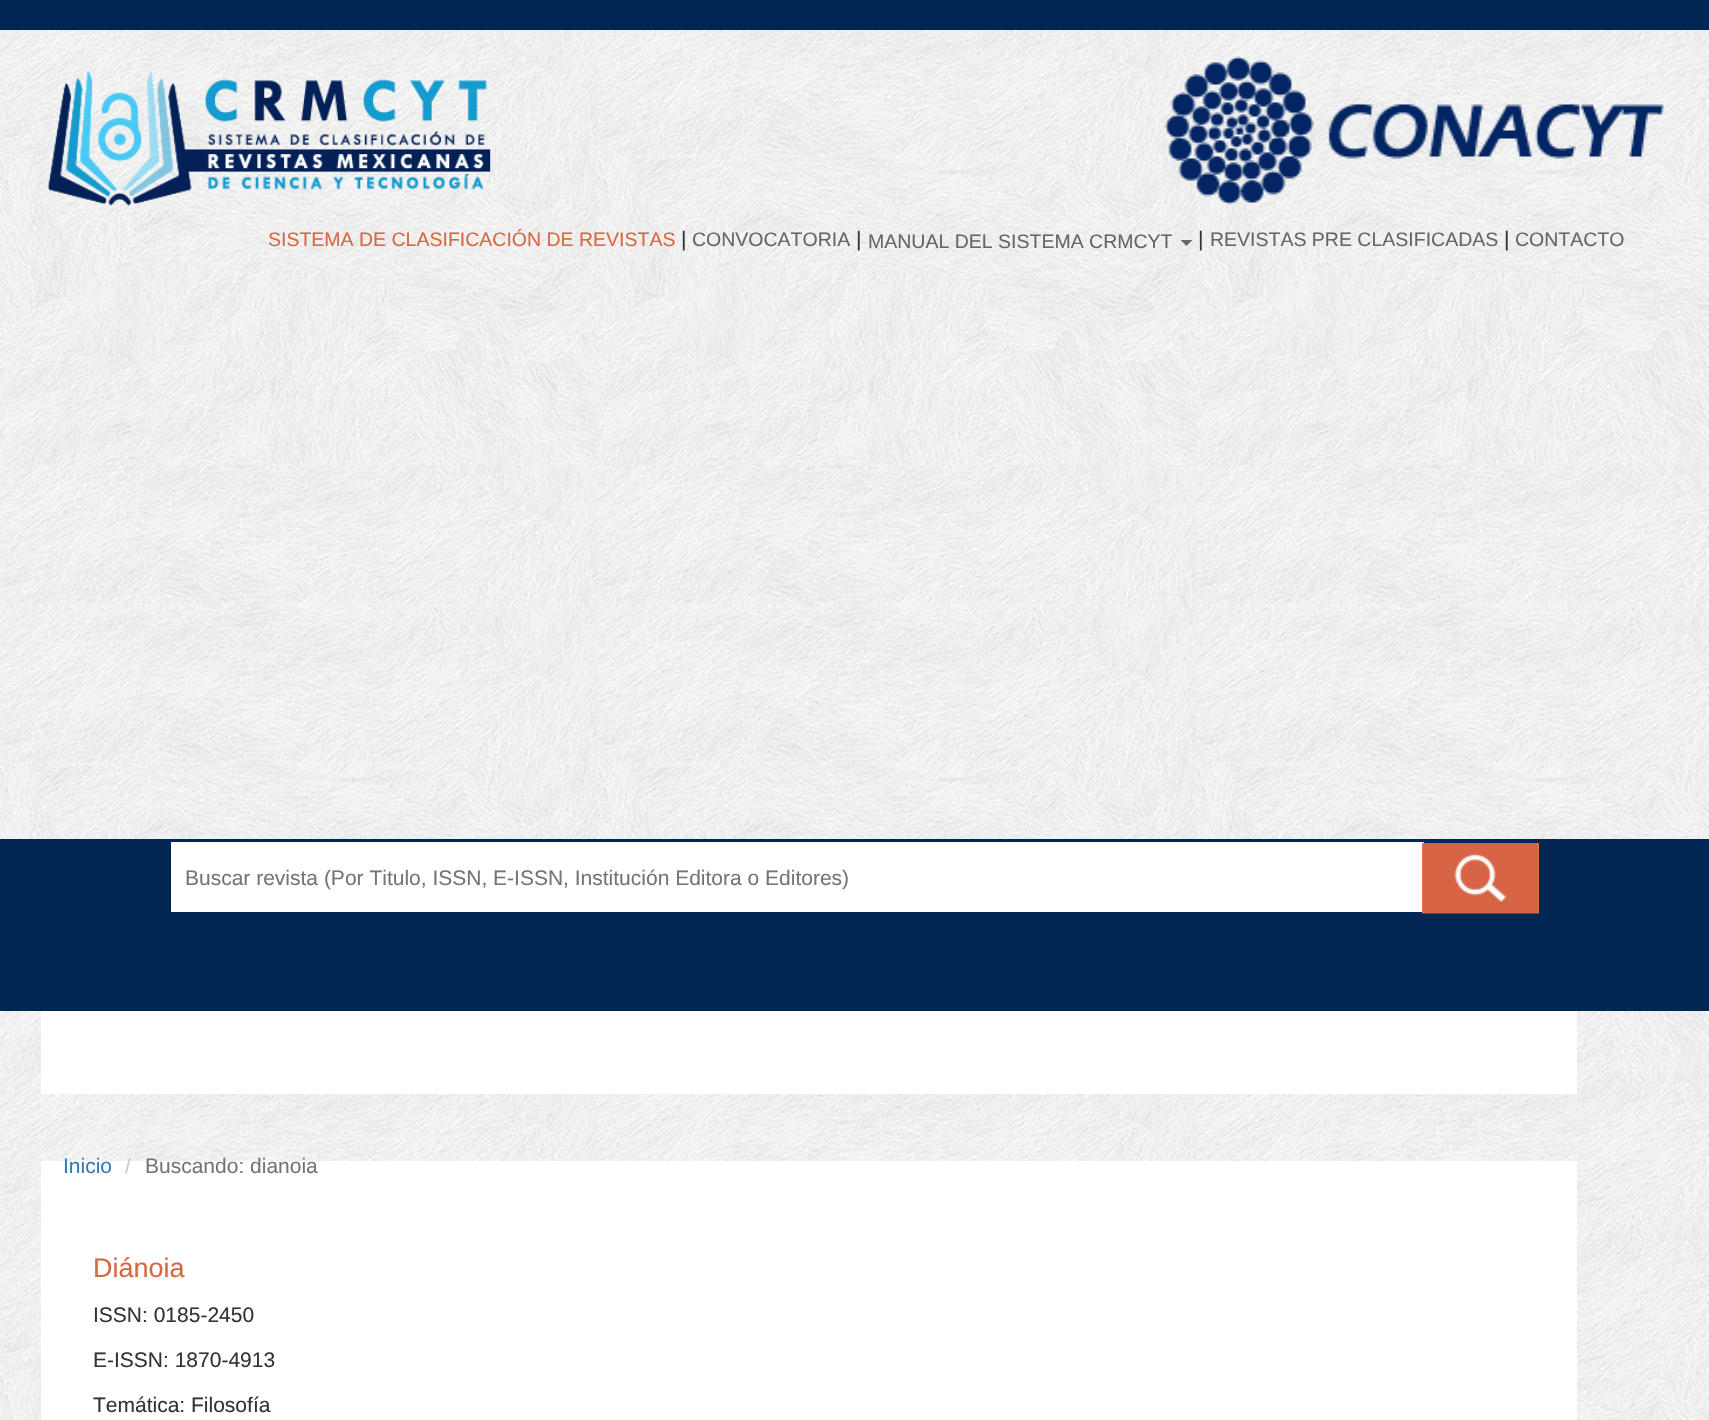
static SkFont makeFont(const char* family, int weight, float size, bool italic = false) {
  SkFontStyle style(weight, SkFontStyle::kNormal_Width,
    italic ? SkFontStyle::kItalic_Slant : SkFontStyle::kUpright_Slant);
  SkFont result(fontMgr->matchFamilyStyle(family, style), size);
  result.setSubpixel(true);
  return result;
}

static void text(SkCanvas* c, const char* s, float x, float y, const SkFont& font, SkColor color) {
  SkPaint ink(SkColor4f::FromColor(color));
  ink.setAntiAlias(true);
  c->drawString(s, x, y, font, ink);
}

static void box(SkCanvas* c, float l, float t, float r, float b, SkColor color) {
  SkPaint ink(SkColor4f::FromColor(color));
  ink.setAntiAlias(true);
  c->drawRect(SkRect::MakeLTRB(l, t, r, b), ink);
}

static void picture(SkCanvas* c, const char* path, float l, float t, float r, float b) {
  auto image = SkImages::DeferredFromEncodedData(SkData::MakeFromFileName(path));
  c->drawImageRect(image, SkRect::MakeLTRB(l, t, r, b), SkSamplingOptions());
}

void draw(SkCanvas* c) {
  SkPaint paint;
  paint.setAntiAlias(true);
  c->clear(0xffffffff);
  picture(c, "img_01.png", 0, 30, 1709, 1420);
  box(c, 0, 0, 1709, 30, 0xff002753);
  picture(c, "img_02.png", 48, 71, 491, 206);
  picture(c, "img_03.png", 1164, 56, 1664, 205);
  SkFont face1 = makeFont("Liberation Sans", 400, 19.5f);
  text(c, "SISTEMA DE CLASIFICACIÓN DE REVISTAS", 268, 246, face1, 0xffd46841);
  SkFont face2 = makeFont("Liberation Sans", 400, 21);
  text(c, "|", 681, 246, face2, 0xff333333);
  text(c, "CONVOCATORIA", 692, 246, face1, 0xff666666);
  text(c, "|", 856, 246, face2, 0xff333333);
  text(c, "MANUAL DEL SISTEMA CRMCYT", 868, 248, face1, 0xff666666);
  paint.setColor(0xff666666);
  c->drawPath(SkPathBuilder().moveTo(1180.5f, 240).lineTo(1192.5f, 240).lineTo(1186.5f, 246).close().detach(), paint);
  text(c, "|", 1198, 246, face2, 0xff333333);
  text(c, "REVISTAS PRE CLASIFICADAS", 1210, 246, face1, 0xff666666);
  text(c, "|", 1504, 246, face2, 0xff333333);
  text(c, "CONTACTO", 1515, 246, face1, 0xff666666);
  box(c, 0, 839, 1709, 1011, 0xff002753);
  box(c, 171, 842, 1424, 912, 0xffffffff);
  text(c, "Buscar revista (Por Titulo, ISSN, E-ISSN, Institución Editora o Editores)", 185, 885, face2, 0xff757575);
  picture(c, "img_04.png", 1422, 843, 1539, 914);
  box(c, 41, 1011, 1577, 1094, 0xffffffff);
  box(c, 41, 1161, 1577, 1420, 0xffffffff);
  text(c, "Inicio", 63, 1173, face2, 0xff337ab7);
  text(c, "/", 125, 1173, face2, 0xffcccccc);
  text(c, "Buscando: dianoia", 145, 1173, face2, 0xff757575);
  SkFont face3 = makeFont("Liberation Sans", 400, 27);
  text(c, "Diánoia", 93, 1277, face3, 0xffd46841);
  text(c, "ISSN: 0185-2450", 93, 1322, face2, 0xff333333);
  text(c, "E-ISSN: 1870-4913", 93, 1367, face2, 0xff333333);
  text(c, "Temática: Filosofía", 93, 1412, face2, 0xff333333);
}
